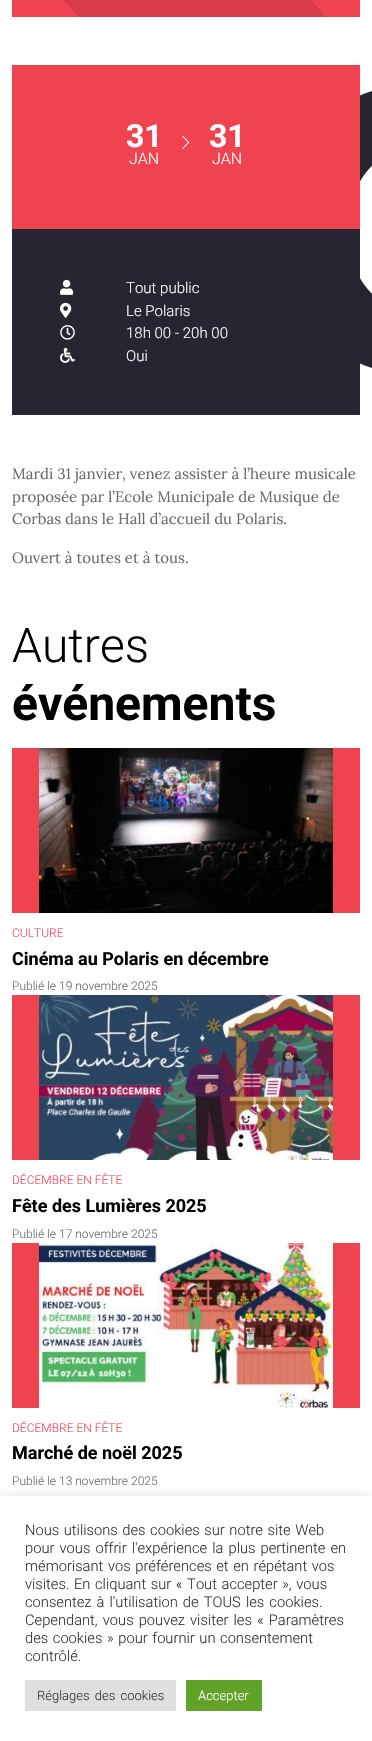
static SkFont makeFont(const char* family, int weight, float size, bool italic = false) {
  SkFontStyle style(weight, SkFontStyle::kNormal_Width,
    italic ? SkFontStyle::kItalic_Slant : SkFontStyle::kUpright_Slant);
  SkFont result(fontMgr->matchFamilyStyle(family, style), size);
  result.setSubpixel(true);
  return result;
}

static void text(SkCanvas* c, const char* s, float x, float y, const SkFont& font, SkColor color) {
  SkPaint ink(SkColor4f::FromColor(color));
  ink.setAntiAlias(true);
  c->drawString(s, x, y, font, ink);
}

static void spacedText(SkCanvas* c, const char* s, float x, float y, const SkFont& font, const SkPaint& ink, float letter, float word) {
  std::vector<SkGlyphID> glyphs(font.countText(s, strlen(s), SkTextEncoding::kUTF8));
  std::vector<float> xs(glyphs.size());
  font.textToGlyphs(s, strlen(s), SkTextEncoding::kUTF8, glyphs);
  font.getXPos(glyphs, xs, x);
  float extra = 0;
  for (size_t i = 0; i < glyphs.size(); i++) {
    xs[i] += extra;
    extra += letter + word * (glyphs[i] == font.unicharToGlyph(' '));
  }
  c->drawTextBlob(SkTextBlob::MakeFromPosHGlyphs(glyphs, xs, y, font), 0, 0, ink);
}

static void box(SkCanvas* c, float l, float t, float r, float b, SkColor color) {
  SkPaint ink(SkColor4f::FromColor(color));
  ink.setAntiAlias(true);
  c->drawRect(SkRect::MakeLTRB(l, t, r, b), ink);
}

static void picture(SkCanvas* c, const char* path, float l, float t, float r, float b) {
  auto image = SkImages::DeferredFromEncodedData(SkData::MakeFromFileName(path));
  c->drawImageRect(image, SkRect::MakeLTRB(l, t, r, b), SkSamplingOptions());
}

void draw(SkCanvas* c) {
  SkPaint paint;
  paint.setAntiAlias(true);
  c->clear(0xffffffff);
  box(c, 12, 0, 360, 17, 0xffef4350);
  picture(c, "img_01.png", 63, 0, 325, 17);
  picture(c, "img_02.png", 360, 89, 372, 368);
  box(c, 12, 65, 360, 229, 0xffef4350);
  SkFont face1 = makeFont("Roboto", 700, 32);
  text(c, "31", 126, 147, face1, 0xffffffff);
  SkFont face2 = makeFont("Roboto", 300, 16);
  text(c, "JAN", 129, 164, face2, 0xffffffff);
  picture(c, "img_03.png", 182, 135, 190, 149);
  text(c, "31", 209, 147, face1, 0xffffffff);
  text(c, "JAN", 212, 164, face2, 0xffffffff);
  box(c, 12, 229, 360, 415, 0xff262532);
  picture(c, "img_04.png", 60, 279, 74, 295);
  SkFont face3 = makeFont("Roboto", 300, 15);
  text(c, "Tout public", 126, 293, face3, 0xffffffff);
  picture(c, "img_05.png", 60, 302, 72, 318);
  text(c, "Le Polaris", 126, 316, face3, 0xffffffff);
  picture(c, "img_06.png", 60, 325, 75, 340);
  text(c, "18h 00 - 20h 00", 126, 338, face3, 0xffffffff);
  picture(c, "img_07.png", 60, 347, 75, 363);
  text(c, "Oui", 126, 361, face3, 0xffffffff);
  SkFont face4 = makeFont("Lora", 400, 15);
  text(c, "Mardi 31 janvier, venez assister à l’heure musicale", 12, 479, face4, 0xff6a6a6a);
  text(c, "proposée par l’Ecole Municipale de Musique de", 12, 502, face4, 0xff6a6a6a);
  text(c, "Corbas dans le Hall d’accueil du Polaris.", 12, 524, face4, 0xff6a6a6a);
  text(c, "Ouvert à toutes et à tous.", 12, 563, face4, 0xff6a6a6a);
  SkFont face5 = makeFont("Roboto", 300, 48);
  text(c, "Autres", 12, 662, face5, 0xff000000);
  SkFont face6 = makeFont("Roboto", 700, 48);
  text(c, "événements", 12, 720, face6, 0xff000000);
  box(c, 12, 748, 360, 913, 0xffef4350);
  picture(c, "img_08.png", 39, 748, 333, 913);
  SkFont face7 = makeFont("Roboto", 300, 12);
  text(c, "CULTURE", 12, 937, face7, 0xffef4350);
  SkFont face8 = makeFont("Roboto", 700, 18);
  text(c, "Cinéma au Polaris en décembre", 12, 965, face8, 0xff000000);
  text(c, "Publié le 19 novembre 2025", 12, 990, face7, 0xff6a6a6a);
  box(c, 12, 995, 360, 1160, 0xffef4350);
  picture(c, "img_09.png", 39, 995, 333, 1160);
  text(c, "DÉCEMBRE EN FÊTE", 12, 1184, face7, 0xffef4350);
  text(c, "Fête des Lumières 2025", 12, 1212, face8, 0xff000000);
  text(c, "Publié le 17 novembre 2025", 12, 1238, face7, 0xff6a6a6a);
  box(c, 12, 1243, 360, 1408, 0xffef4350);
  picture(c, "img_10.png", 39, 1243, 333, 1408);
  text(c, "DÉCEMBRE EN FÊTE", 12, 1432, face7, 0xffef4350);
  text(c, "Marché de noël 2025", 12, 1459, face8, 0xff000000);
  text(c, "Publié le 13 novembre 2025", 12, 1485, face7, 0xff6a6a6a);
  paint.setColor(0x4dacabab);
  paint.setMaskFilter(SkMaskFilter::MakeBlur(kNormal_SkBlurStyle, 5));
  c->drawRect(SkRect::MakeLTRB(0, 1495, 372, 1740), paint);
  paint.setMaskFilter(nullptr);
  box(c, 0, 1496, 372, 1741, 0xffffffff);
  SkFont face9 = makeFont("Roboto", 300, 14.7f);
  paint.setColor(0xff333333);
  spacedText(c, "Nous utilisons des cookies sur notre site Web", 25, 1535, face9, paint, 0, 1);
  spacedText(c, "pour vous offrir l'expérience la plus pertinente en", 25, 1553, face9, paint, 0, 1.5f);
  spacedText(c, "mémorisant vos préférences et en répétant vos", 25, 1571, face9, paint, 0, 1);
  spacedText(c, "visites. En cliquant sur « Tout accepter », vous", 25, 1589, face9, paint, 0, 1);
  spacedText(c, "consentez à l'utilisation de TOUS les cookies.", 25, 1607, face9, paint, 0, 1.5f);
  spacedText(c, "Cependant, vous pouvez visiter les « Paramètres", 25, 1625, face9, paint, 0, 1.5f);
  spacedText(c, "des cookies » pour fournir un consentement", 25, 1643, face9, paint, 0, 1);
  text(c, "contrôlé.", 25, 1661, face9, 0xff333333);
  box(c, 25, 1680, 176, 1711, 0xffdedfe0);
  SkFont face10 = makeFont("Roboto", 300, 13);
  spacedText(c, "Réglages des cookies", 37, 1700, face10, paint, 0, 2);
  box(c, 186, 1680, 262, 1711, 0xff61a229);
  text(c, "Accepter", 198, 1700, face10, 0xffffffff);
}
